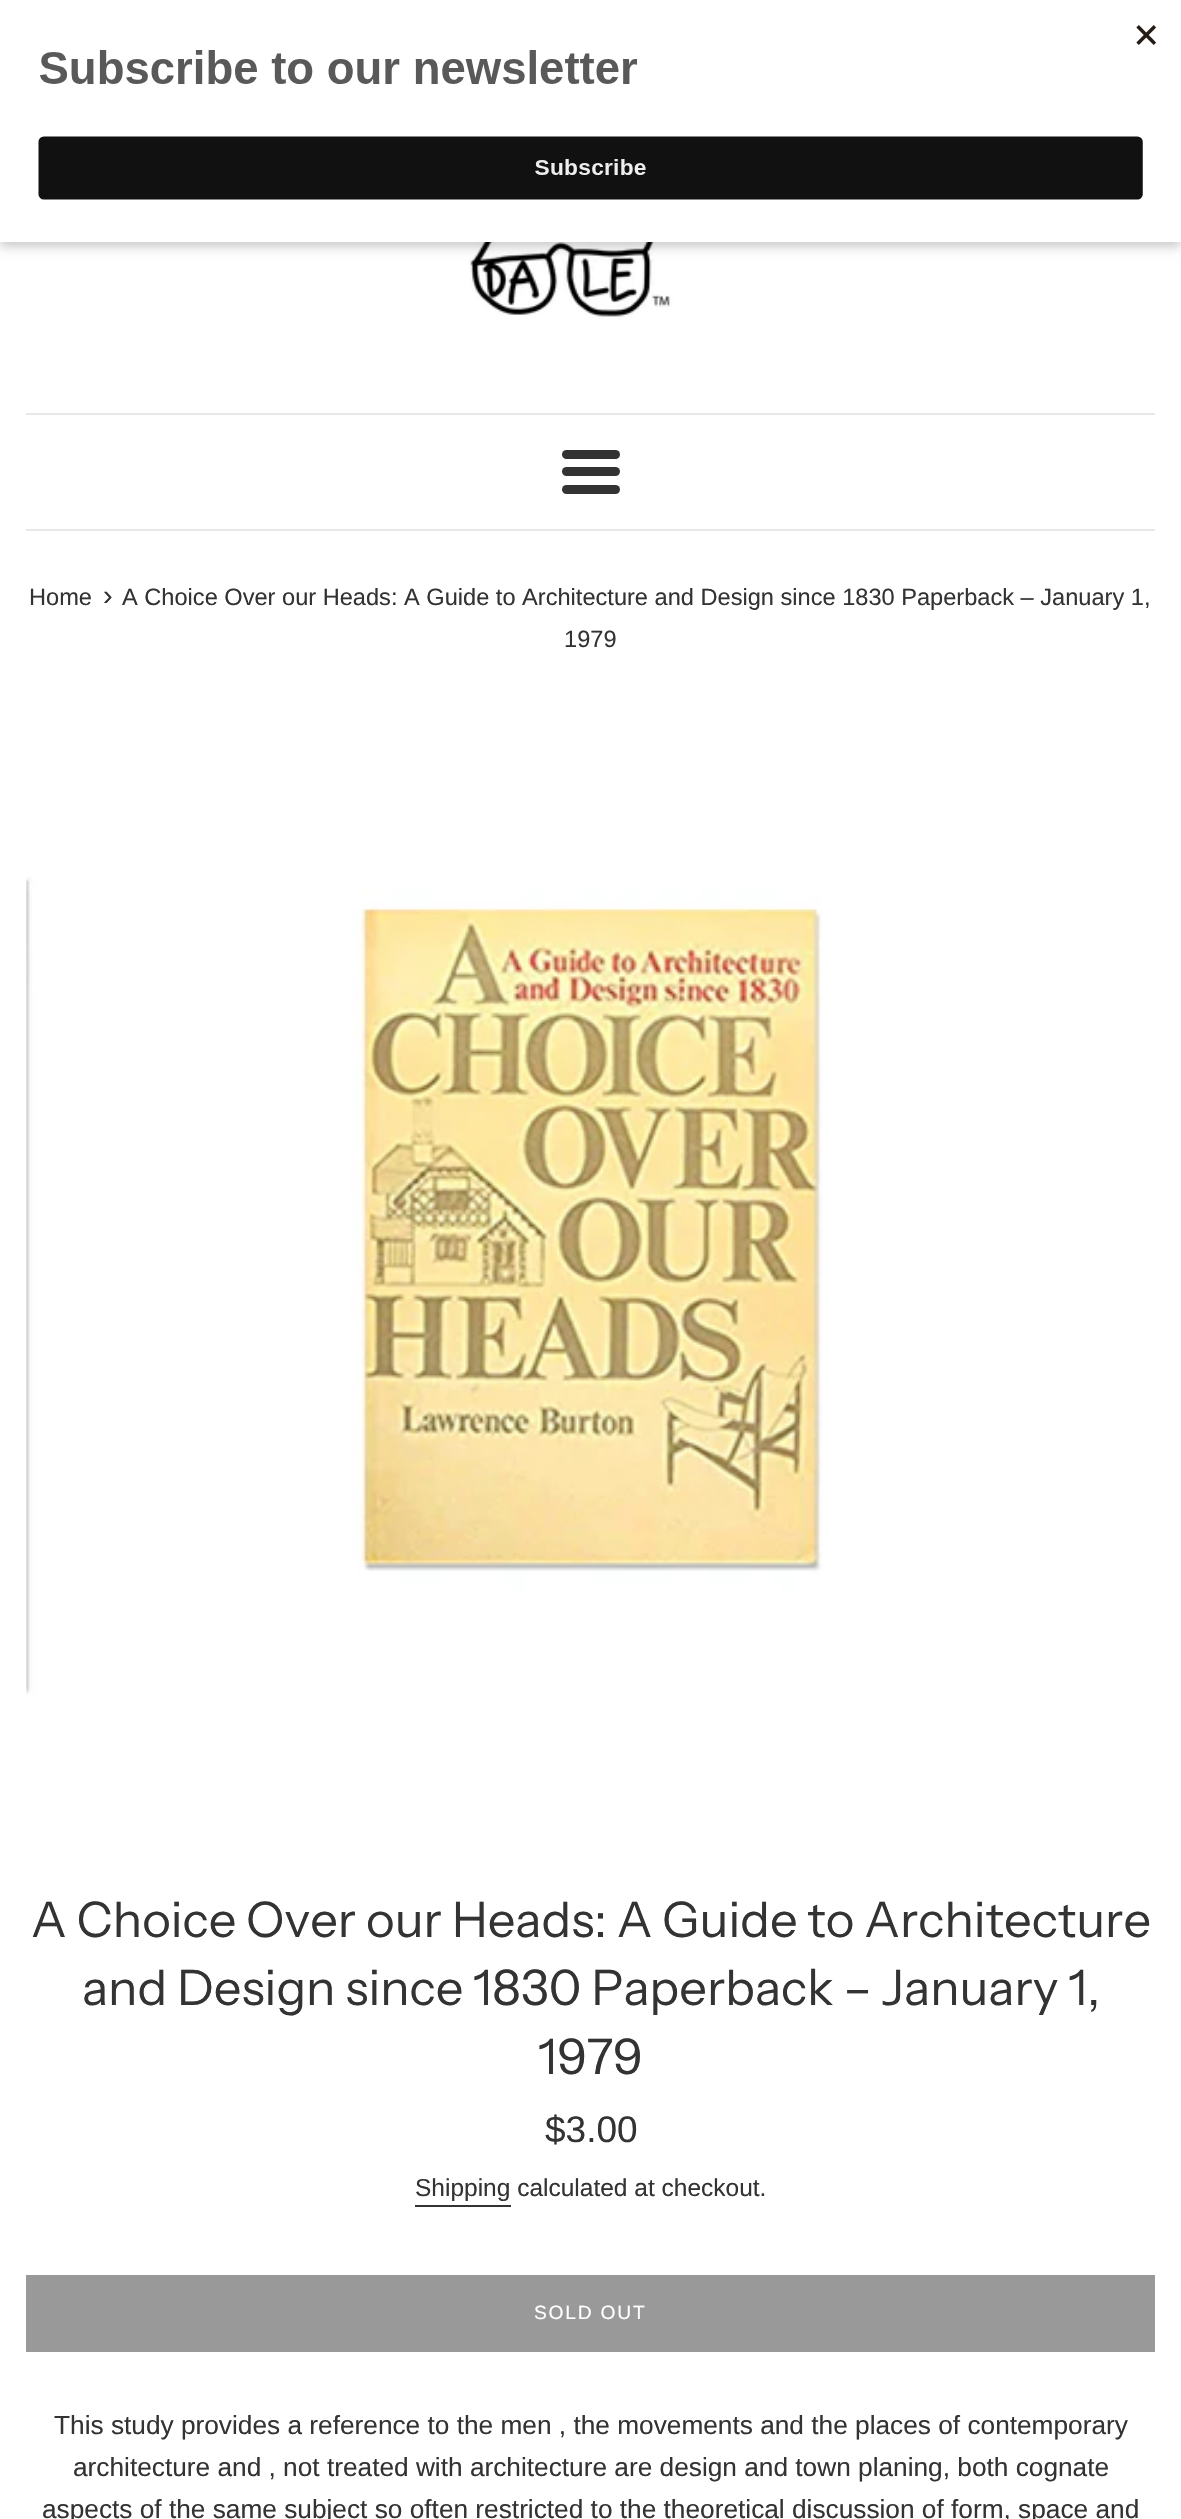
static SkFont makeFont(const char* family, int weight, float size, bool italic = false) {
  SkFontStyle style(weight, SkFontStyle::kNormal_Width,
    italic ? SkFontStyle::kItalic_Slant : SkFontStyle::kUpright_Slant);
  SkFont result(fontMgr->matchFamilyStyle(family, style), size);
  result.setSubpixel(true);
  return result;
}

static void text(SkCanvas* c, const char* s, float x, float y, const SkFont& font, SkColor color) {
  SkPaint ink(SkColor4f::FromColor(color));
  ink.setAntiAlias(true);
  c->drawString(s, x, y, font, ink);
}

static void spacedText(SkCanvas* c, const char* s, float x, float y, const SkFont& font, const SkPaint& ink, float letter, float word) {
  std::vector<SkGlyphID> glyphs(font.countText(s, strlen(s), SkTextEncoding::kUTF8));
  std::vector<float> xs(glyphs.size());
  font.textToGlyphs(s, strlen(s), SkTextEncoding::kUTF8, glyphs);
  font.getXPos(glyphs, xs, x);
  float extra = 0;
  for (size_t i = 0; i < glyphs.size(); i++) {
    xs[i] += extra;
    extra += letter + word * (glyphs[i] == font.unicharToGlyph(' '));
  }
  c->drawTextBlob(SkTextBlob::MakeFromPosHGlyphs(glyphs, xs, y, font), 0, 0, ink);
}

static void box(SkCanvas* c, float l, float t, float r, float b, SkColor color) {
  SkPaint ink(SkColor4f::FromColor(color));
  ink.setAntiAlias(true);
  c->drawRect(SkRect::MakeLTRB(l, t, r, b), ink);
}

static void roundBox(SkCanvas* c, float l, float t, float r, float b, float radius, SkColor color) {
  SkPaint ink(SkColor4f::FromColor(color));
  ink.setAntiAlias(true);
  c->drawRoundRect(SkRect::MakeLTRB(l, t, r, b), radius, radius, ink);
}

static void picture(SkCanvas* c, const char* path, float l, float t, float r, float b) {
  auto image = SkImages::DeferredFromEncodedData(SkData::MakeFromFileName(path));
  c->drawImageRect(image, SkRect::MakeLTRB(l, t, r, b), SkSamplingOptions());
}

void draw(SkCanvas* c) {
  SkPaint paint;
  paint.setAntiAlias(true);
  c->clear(0xffffffff);
  picture(c, "img_02.png", 469, 242, 703, 319);
  paint.setColor(0x33000000);
  paint.setMaskFilter(SkMaskFilter::MakeBlur(kNormal_SkBlurStyle, 5));
  c->drawRect(SkRect::MakeLTRB(0, 5, 1181, 247), paint);
  paint.setMaskFilter(nullptr);
  box(c, 0, 0, 1181, 242, 0xffffffff);
  picture(c, "img_01.png", 38, 25, 1156, 200);
  box(c, 26, 413, 1155, 415, 0xffe8e8e8);
  roundBox(c, 562, 450, 620, 459, 4.5f, 0xff333333);
  roundBox(c, 562, 467, 620, 476, 4.5f, 0xff333333);
  roundBox(c, 562, 485, 620, 494, 4.5f, 0xff333333);
  box(c, 26, 529, 1155, 531, 0xffe8e8e8);
  SkFont face1 = makeFont("Liberation Sans", 400, 23.6f);
  text(c, "Home", 29, 605, face1, 0xff333333);
  SkFont face2 = makeFont("Liberation Sans", 400, 29);
  text(c, "›", 103, 605, face2, 0xff333333);
  text(c, "A Choice Over our Heads: A Guide to Architecture and Design since 1830 Paperback – January 1,", 122, 605, face1, 0xff333333);
  text(c, "1979", 564, 647, face1, 0xff333333);
  picture(c, "img_03.png", 26, 877, 823, 1695);
  SkFont face3 = makeFont("Instrument Sans", 400, 49);
  text(c, "A Choice Over our Heads: A Guide to Architecture", 31, 1937, face3, 0xff333333);
  text(c, "and Design since 1830 Paperback – January 1,", 82, 2005, face3, 0xff333333);
  text(c, "1979", 538, 2074, face3, 0xff333333);
  SkFont face4 = makeFont("Liberation Sans", 400, 37);
  text(c, "$3.00", 545, 2142, face4, 0xff333333);
  SkFont face5 = makeFont("Liberation Sans", 400, 24.5f);
  text(c, "Shipping calculated at checkout.", 415, 2196, face5, 0xff333333);
  box(c, 415, 2205, 511, 2207, 0xff333333);
  box(c, 26, 2275, 1155, 2352, 0xff999999);
  SkFont face6 = makeFont("Liberation Sans", 400, 19.25f);
  paint.setColor(0xffffffff);
  spacedText(c, "SOLD OUT", 534, 2319, face6, paint, 1.75f, 0);
  SkFont face7 = makeFont("Liberation Sans", 400, 26.25f);
  text(c, "This study provides a reference to the men , the movements and the places of contemporary", 54, 2434, face7, 0xff333333);
  text(c, "architecture and , not treated with architecture are design and town planing, both cognate", 73, 2476, face7, 0xff333333);
  text(c, "aspects of the same subject so often restricted to the theoretical discussion of form, space and", 42, 2518, face7, 0xff333333);
}
